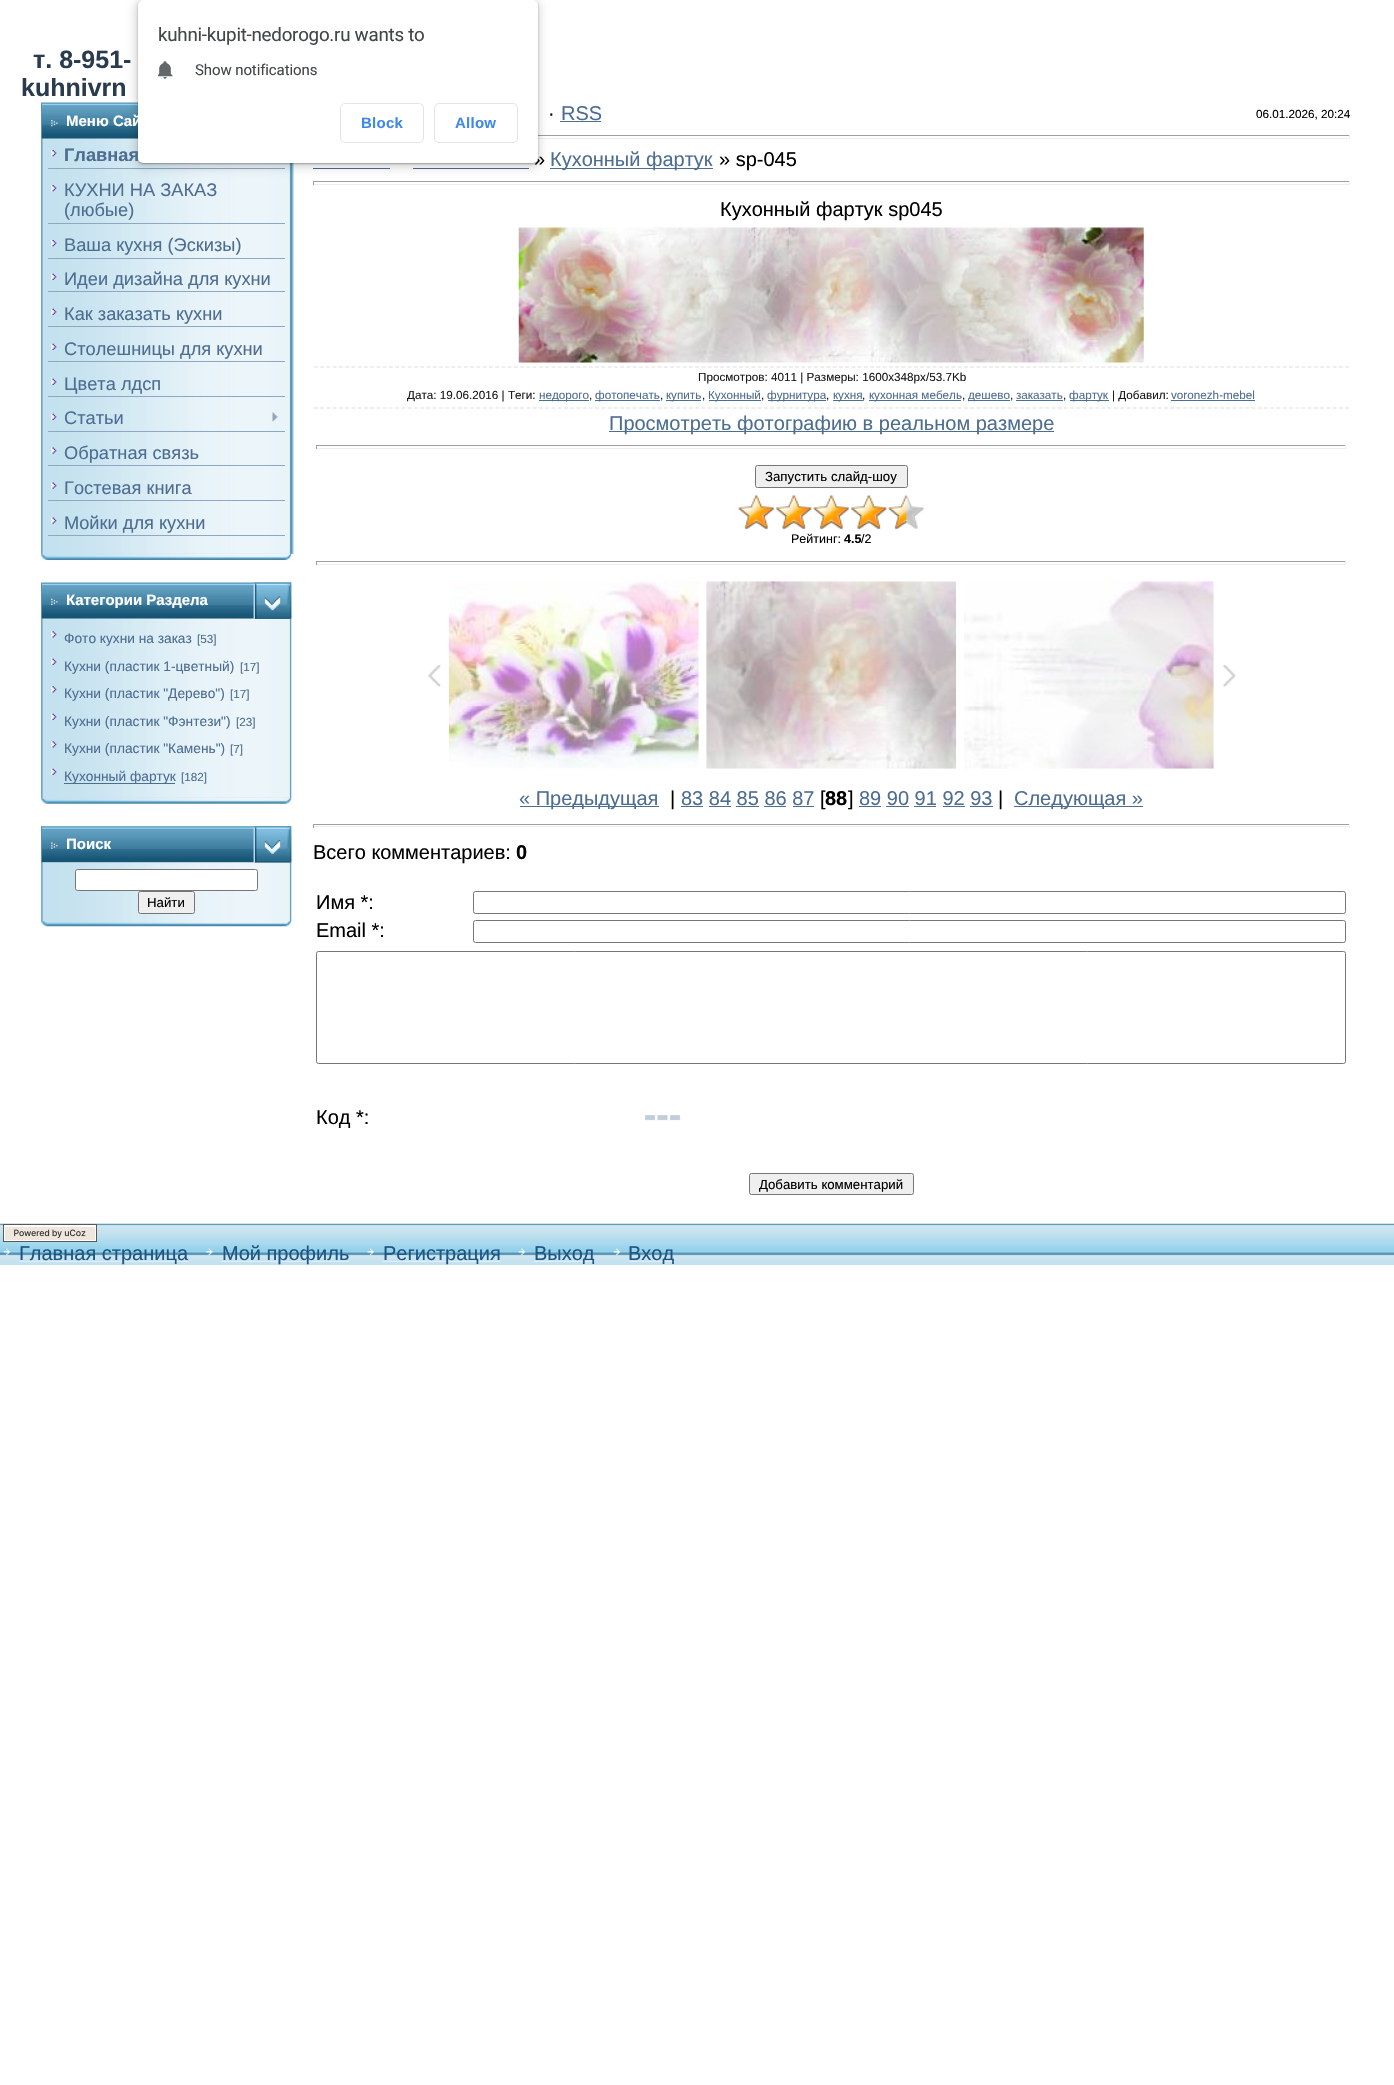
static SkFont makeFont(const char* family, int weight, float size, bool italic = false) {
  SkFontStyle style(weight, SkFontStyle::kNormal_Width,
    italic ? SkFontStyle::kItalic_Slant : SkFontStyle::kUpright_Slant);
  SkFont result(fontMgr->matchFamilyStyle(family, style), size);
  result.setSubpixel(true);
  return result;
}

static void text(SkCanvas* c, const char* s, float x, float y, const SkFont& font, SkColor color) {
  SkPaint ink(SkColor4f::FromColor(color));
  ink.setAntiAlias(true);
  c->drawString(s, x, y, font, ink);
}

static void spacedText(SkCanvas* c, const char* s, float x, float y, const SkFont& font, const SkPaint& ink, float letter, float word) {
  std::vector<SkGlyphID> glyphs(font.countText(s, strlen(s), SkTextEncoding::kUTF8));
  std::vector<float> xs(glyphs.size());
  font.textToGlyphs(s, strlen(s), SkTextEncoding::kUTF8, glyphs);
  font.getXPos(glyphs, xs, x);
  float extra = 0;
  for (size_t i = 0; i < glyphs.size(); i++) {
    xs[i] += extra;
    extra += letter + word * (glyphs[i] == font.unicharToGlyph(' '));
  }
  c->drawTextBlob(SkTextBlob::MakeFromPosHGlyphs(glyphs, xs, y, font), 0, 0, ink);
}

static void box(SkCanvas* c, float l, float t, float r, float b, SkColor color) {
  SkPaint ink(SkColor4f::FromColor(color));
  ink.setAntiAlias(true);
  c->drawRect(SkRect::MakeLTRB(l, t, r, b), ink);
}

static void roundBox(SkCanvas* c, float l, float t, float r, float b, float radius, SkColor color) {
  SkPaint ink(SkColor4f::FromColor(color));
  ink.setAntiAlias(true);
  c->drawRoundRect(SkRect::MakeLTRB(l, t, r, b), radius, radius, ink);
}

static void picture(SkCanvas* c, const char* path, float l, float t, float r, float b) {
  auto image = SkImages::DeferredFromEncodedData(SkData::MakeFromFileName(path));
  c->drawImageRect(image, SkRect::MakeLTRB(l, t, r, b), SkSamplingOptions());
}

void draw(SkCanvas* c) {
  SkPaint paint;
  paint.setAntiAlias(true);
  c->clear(0xffffffff);
  picture(c, "img_02.png", 41, 102, 138, 139);
  box(c, 41, 139, 294, 554, 0xffc3e1ef);
  box(c, 41, 103, 42, 139, 0xff5694b5);
  picture(c, "img_04.png", 41, 138, 294, 554);
  box(c, 48, 168, 285, 169, 0xff8ea8c4);
  box(c, 538, 135, 1350, 136, 0xff9f9f9f);
  box(c, 1349, 135, 1350, 139, 0xffeeeeee);
  box(c, 538, 138, 1350, 139, 0xffeeeeee);
  box(c, 550, 168, 713, 169, 0xff4d6d91);
  box(c, 313, 168, 390, 169, 0xff4d6d91);
  box(c, 413, 168, 529, 169, 0xff4d6d91);
  paint.setColor(0x26000000);
  paint.setMaskFilter(SkMaskFilter::MakeBlur(kNormal_SkBlurStyle, 4));
  c->drawRoundRect(SkRect::MakeLTRB(135, 0, 540, 168), 8, 8, paint);
  paint.setMaskFilter(nullptr);
  paint.setColor(0x4d000000);
  paint.setMaskFilter(SkMaskFilter::MakeBlur(kNormal_SkBlurStyle, 1));
  c->drawRoundRect(SkRect::MakeLTRB(138, 1, 538, 164), 5, 5, paint);
  paint.setMaskFilter(nullptr);
  SkFont face1 = makeFont("Liberation Sans", 400, 20);
  text(c, "»", 534, 166, face1, 0xff000000);
  roundBox(c, 138, 0, 538, 163, 5, 0xffffffff);
  SkFont face2 = makeFont("Roboto", 400, 18.75f);
  paint.setColor(0xff434749);
  spacedText(c, "kuhni-kupit-nedorogo.ru wants to", 158, 41, face2, paint, -0.25f, 0);
  picture(c, "img_01.png", 158, 61, 173, 79);
  SkFont face3 = makeFont("Roboto", 400, 15);
  spacedText(c, "Show notifications", 195, 75, face3, paint, -0.1f, 0);
  paint.setStyle(SkPaint::kStroke_Style);
  paint.setStrokeWidth(1);
  paint.setColor(0xffe4e4e4);
  c->drawRoundRect(SkRect::MakeLTRB(340.5f, 103.5f, 423.5f, 142.5f), 4.5f, 4.5f, paint);
  SkFont face4 = makeFont("Liberation Sans", 700, 15);
  paint.setStyle(SkPaint::kFill_Style);
  paint.setColor(0xff4089e8);
  spacedText(c, "Block", 361, 128, face4, paint, 0.25f, 0);
  paint.setStyle(SkPaint::kStroke_Style);
  paint.setColor(0xffe4e4e4);
  c->drawRoundRect(SkRect::MakeLTRB(434.5f, 103.5f, 517.5f, 142.5f), 4.5f, 4.5f, paint);
  paint.setStyle(SkPaint::kFill_Style);
  paint.setColor(0xff4089e8);
  spacedText(c, "Allow", 455, 128, face4, paint, 0.25f, 0);
  SkFont face5 = makeFont("Liberation Sans", 700, 25);
  text(c, "т. 8-951-", 33, 68, face5, 0xff2a3b4f);
  text(c, "kuhnivrn", 21, 96, face5, 0xff2a3b4f);
  picture(c, "img_03.png", 51, 120, 58, 127);
  text(c, "Меню Сай", 66, 126, face4, 0xffffffff);
  picture(c, "img_05.png", 51, 150, 57, 157);
  SkFont face6 = makeFont("Liberation Sans", 700, 18.25f);
  text(c, "Главная", 64, 161, face6, 0xff4d6d91);
  picture(c, "img_05.png", 51, 185, 57, 192);
  box(c, 48, 223, 285, 224, 0xff8ea8c4);
  SkFont face7 = makeFont("Liberation Sans", 400, 18.25f);
  text(c, "КУХНИ НА ЗАКАЗ", 64, 196, face7, 0xff4d6d91);
  text(c, "(любые)", 64, 216, face7, 0xff4d6d91);
  picture(c, "img_05.png", 51, 240, 57, 247);
  box(c, 48, 258, 285, 259, 0xff8ea8c4);
  text(c, "Ваша кухня (Эскизы)", 64, 251, face7, 0xff4d6d91);
  picture(c, "img_06.png", 51, 273, 57, 280);
  box(c, 48, 291, 285, 292, 0xff8ea8c4);
  text(c, "Идеи дизайна для кухни", 64, 285, face7, 0xff4d6d91);
  picture(c, "img_06.png", 51, 308, 57, 315);
  box(c, 48, 326, 285, 327, 0xff8ea8c4);
  text(c, "Как заказать кухни", 64, 320, face7, 0xff4d6d91);
  picture(c, "img_06.png", 51, 343, 57, 350);
  box(c, 48, 361, 285, 362, 0xff8ea8c4);
  text(c, "Столешницы для кухни", 64, 355, face7, 0xff4d6d91);
  picture(c, "img_06.png", 51, 378, 57, 385);
  box(c, 48, 396, 285, 397, 0xff8ea8c4);
  text(c, "Цвета лдсп", 64, 390, face7, 0xff4d6d91);
  picture(c, "img_06.png", 51, 413, 57, 420);
  box(c, 48, 431, 285, 432, 0xff8ea8c4);
  text(c, "Статьи", 64, 424, face7, 0xff4d6d91);
  picture(c, "img_07.png", 272, 412, 278, 422);
  picture(c, "img_08.png", 51, 447, 57, 454);
  box(c, 48, 465, 285, 466, 0xff8ea8c4);
  text(c, "Обратная связь", 64, 459, face7, 0xff4d6d91);
  picture(c, "img_08.png", 51, 482, 57, 489);
  box(c, 48, 500, 285, 501, 0xff8ea8c4);
  text(c, "Гостевая книга", 64, 494, face7, 0xff4d6d91);
  picture(c, "img_08.png", 51, 517, 57, 524);
  box(c, 48, 535, 285, 536, 0xff8ea8c4);
  text(c, "Мойки для кухни", 64, 529, face7, 0xff4d6d91);
  picture(c, "img_09.png", 41, 553, 292, 560);
  picture(c, "img_10.png", 41, 582, 254, 619);
  box(c, 41, 583, 42, 619, 0xff5694b5);
  picture(c, "img_11.png", 51, 598, 58, 605);
  text(c, "Категории Раздела", 66, 605, face4, 0xffffffff);
  picture(c, "img_12.png", 253, 582, 292, 619);
  box(c, 41, 619, 291, 798, 0xffc3e1ef);
  picture(c, "img_14.png", 41, 618, 292, 798);
  picture(c, "img_13.png", 253, 582, 292, 619);
  picture(c, "img_15.png", 51, 631, 57, 638);
  SkFont face8 = makeFont("Liberation Sans", 400, 13.75f);
  text(c, "Фото кухни на заказ", 64, 643, face8, 0xff4d6d91);
  SkFont face9 = makeFont("Liberation Sans", 400, 11.7f);
  text(c, "[53]", 197, 643, face9, 0xff4d6d91);
  picture(c, "img_06.png", 51, 658, 57, 665);
  text(c, "Кухни (пластик 1-цветный)", 64, 671, face8, 0xff4d6d91);
  text(c, "[17]", 240, 671, face9, 0xff4d6d91);
  picture(c, "img_15.png", 51, 686, 57, 693);
  text(c, "Кухни (пластик \"Дерево\")", 64, 698, face8, 0xff4d6d91);
  text(c, "[17]", 230, 698, face9, 0xff4d6d91);
  picture(c, "img_06.png", 51, 713, 57, 720);
  text(c, "Кухни (пластик \"Фэнтези\")", 64, 726, face8, 0xff4d6d91);
  text(c, "[23]", 236, 726, face9, 0xff4d6d91);
  picture(c, "img_15.png", 51, 741, 57, 748);
  text(c, "Кухни (пластик \"Камень\")", 64, 753, face8, 0xff4d6d91);
  text(c, "[7]", 230, 753, face9, 0xff4d6d91);
  picture(c, "img_06.png", 51, 768, 57, 775);
  box(c, 64, 783, 175, 784, 0xff4d6d91);
  text(c, "Кухонный фартук", 64, 781, face8, 0xff4d6d91);
  text(c, "[182]", 181, 781, face9, 0xff4d6d91);
  picture(c, "img_16.png", 41, 797, 292, 804);
  picture(c, "img_17.png", 42, 826, 254, 863);
  box(c, 41, 826, 42, 863, 0xff5694b5);
  picture(c, "img_18.png", 51, 842, 58, 849);
  text(c, "Поиск", 66, 849, face4, 0xffffffff);
  picture(c, "img_19.png", 253, 826, 292, 863);
  picture(c, "img_21.png", 41, 862, 292, 920);
  picture(c, "img_20.png", 253, 826, 292, 863);
  paint.setColor(0xffffffff);
  c->drawRoundRect(SkRect::MakeLTRB(75.5f, 869.5f, 257.5f, 890.5f), 2, 2, paint);
  paint.setStyle(SkPaint::kStroke_Style);
  paint.setColor(0xff767676);
  c->drawRoundRect(SkRect::MakeLTRB(75.5f, 869.5f, 257.5f, 890.5f), 2, 2, paint);
  paint.setStyle(SkPaint::kFill_Style);
  paint.setColor(0xffefefef);
  c->drawRoundRect(SkRect::MakeLTRB(138.5f, 891.5f, 194.5f, 913.5f), 2, 2, paint);
  paint.setStyle(SkPaint::kStroke_Style);
  paint.setColor(0xff767676);
  c->drawRoundRect(SkRect::MakeLTRB(138.5f, 891.5f, 194.5f, 913.5f), 2, 2, paint);
  SkFont face10 = makeFont("Liberation Sans", 400, 13.25f);
  text(c, "Найти", 147, 907, face10, 0xff000000);
  picture(c, "img_22.png", 41, 920, 292, 927);
  text(c, "·", 548, 120, face1, 0xff000000);
  text(c, "RSS", 561, 120, face1, 0xff4d6d91);
  box(c, 560, 121, 601, 122, 0xff4d6d91);
  text(c, "06.01.2026, 20:24", 1256, 118, face9, 0xff000000);
  text(c, "Кухонный фартук", 550, 166, face1, 0xff4d6d91);
  text(c, "» sp-045", 719, 166, face1, 0xff000000);
  box(c, 313, 181, 1350, 182, 0xff9f9f9f);
  box(c, 1349, 181, 1350, 185, 0xffeeeeee);
  box(c, 313, 184, 1350, 185, 0xffeeeeee);
  box(c, 313, 181, 314, 185, 0xff9f9f9f);
  text(c, "Кухонный фартук sp045", 720, 216, face1, 0xff000000);
  picture(c, "img_23.png", 518, 227, 1144, 363);
  paint.setStrokeWidth(1.2f);
  paint.setColor(0xffdddddd);
  paint.setPathEffect(SkDashPathEffect::Make({{3.75f, 2.5f}}, 0));
  c->drawPath(SkPathBuilder().moveTo(314, 367).lineTo(1349, 367).detach(), paint);
  paint.setPathEffect(nullptr);
  paint.setPathEffect(SkDashPathEffect::Make({{3.75f, 2.5f}}, 0));
  c->drawPath(SkPathBuilder().moveTo(314, 408).lineTo(1349, 408).detach(), paint);
  paint.setPathEffect(nullptr);
  text(c, "Просмотров: 4011 | Размеры: 1600x348px/53.7Kb", 698, 381, face9, 0xff1a1a1a);
  text(c, "Дата: 19.06.2016 | Теги:", 407, 399, face9, 0xff1a1a1a);
  box(c, 539, 400, 589, 401, 0xff4d6d91);
  text(c, "недорого", 539, 399, face9, 0xff4d6d91);
  text(c, ",", 589, 399, face9, 0xff1a1a1a);
  box(c, 595, 400, 660, 401, 0xff4d6d91);
  text(c, "фотопечать", 595, 399, face9, 0xff4d6d91);
  text(c, ",", 660, 399, face9, 0xff1a1a1a);
  box(c, 666, 400, 701, 401, 0xff4d6d91);
  text(c, "купить", 666, 399, face9, 0xff4d6d91);
  text(c, ",", 702, 399, face9, 0xff1a1a1a);
  box(c, 709, 400, 761, 401, 0xff4d6d91);
  text(c, "Кухонный", 708, 399, face9, 0xff4d6d91);
  text(c, ",", 761, 399, face9, 0xff1a1a1a);
  box(c, 768, 400, 826, 401, 0xff4d6d91);
  text(c, "фурнитура", 767, 399, face9, 0xff4d6d91);
  text(c, ",", 826, 399, face9, 0xff1a1a1a);
  box(c, 833, 400, 863, 401, 0xff4d6d91);
  text(c, "кухня", 833, 399, face9, 0xff4d6d91);
  text(c, ",", 862, 399, face9, 0xff1a1a1a);
  box(c, 869, 400, 961, 401, 0xff4d6d91);
  text(c, "кухонная мебель", 869, 399, face9, 0xff4d6d91);
  text(c, ",", 962, 399, face9, 0xff1a1a1a);
  box(c, 968, 400, 1010, 401, 0xff4d6d91);
  text(c, "дешево", 968, 399, face9, 0xff4d6d91);
  text(c, ",", 1010, 399, face9, 0xff1a1a1a);
  text(c, "заказать", 1016, 399, face9, 0xff4d6d91);
  text(c, ",", 1063, 399, face9, 0xff1a1a1a);
  box(c, 1016, 400, 1063, 401, 0xff4d6d91);
  box(c, 1070, 400, 1109, 401, 0xff4d6d91);
  text(c, "фартук", 1069, 399, face9, 0xff4d6d91);
  text(c, "| Добавил:", 1112, 399, face9, 0xff1a1a1a);
  text(c, "voronezh-mebel", 1171, 399, face9, 0xff4d6d91);
  box(c, 1171, 400, 1255, 401, 0xff4d6d91);
  box(c, 609, 431, 1054, 432, 0xff4d6d91);
  text(c, "Просмотреть фотографию в реальном размере", 609, 430, face1, 0xff4d6d91);
  box(c, 316, 445, 1346, 446, 0xff9f9f9f);
  box(c, 1345, 445, 1346, 449, 0xffeeeeee);
  box(c, 316, 448, 1346, 449, 0xffeeeeee);
  box(c, 316, 445, 317, 449, 0xff9f9f9f);
  paint.setStyle(SkPaint::kFill_Style);
  paint.setColor(0xffefefef);
  c->drawRoundRect(SkRect::MakeLTRB(755.5f, 465.5f, 907.5f, 487.5f), 2, 2, paint);
  paint.setStyle(SkPaint::kStroke_Style);
  paint.setStrokeWidth(1);
  paint.setColor(0xff767676);
  c->drawRoundRect(SkRect::MakeLTRB(755.5f, 465.5f, 907.5f, 487.5f), 2, 2, paint);
  text(c, "Запустить слайд-шоу", 765, 481, face10, 0xff000000);
  picture(c, "img_24.png", 738, 495, 924, 529);
  picture(c, "img_25.png", 738, 495, 907, 530);
  SkFont face11 = makeFont("Liberation Sans", 400, 12.5f);
  text(c, "Рейтинг:", 791, 543, face11, 0xff000000);
  SkFont face12 = makeFont("Liberation Sans", 700, 12.5f);
  text(c, "4.5", 844, 543, face12, 0xff000000);
  text(c, "/2", 861, 543, face11, 0xff000000);
  box(c, 316, 561, 1346, 562, 0xff9f9f9f);
  box(c, 1345, 561, 1346, 565, 0xffeeeeee);
  box(c, 316, 564, 1346, 565, 0xffeeeeee);
  box(c, 316, 561, 317, 565, 0xff9f9f9f);
  picture(c, "img_26.png", 427, 665, 441, 687);
  picture(c, "img_27.png", 448, 581, 699, 769);
  picture(c, "img_28.png", 706, 581, 957, 769);
  picture(c, "img_29.png", 964, 581, 1214, 769);
  picture(c, "img_30.png", 1222, 665, 1236, 687);
  box(c, 520, 806, 659, 807, 0xff4d6d91);
  text(c, "« Предыдущая", 519, 805, face1, 0xff4d6d91);
  text(c, "|", 670, 805, face1, 0xff000000);
  text(c, "83 84 85 86 87", 681, 805, face1, 0xff4d6d91);
  box(c, 681, 806, 703, 807, 0xff4d6d91);
  text(c, "[", 820, 805, face1, 0xff000000);
  SkFont face13 = makeFont("Liberation Sans", 700, 20);
  text(c, "88", 825, 805, face13, 0xff000000);
  text(c, "]", 848, 805, face1, 0xff000000);
  text(c, "89 90 91 92 93", 859, 805, face1, 0xff4d6d91);
  box(c, 859, 806, 881, 807, 0xff4d6d91);
  text(c, "|", 998, 805, face1, 0xff000000);
  box(c, 1014, 806, 1143, 807, 0xff4d6d91);
  text(c, "Следующая »", 1014, 805, face1, 0xff4d6d91);
  box(c, 709, 806, 731, 807, 0xff4d6d91);
  box(c, 736, 806, 759, 807, 0xff4d6d91);
  box(c, 764, 806, 786, 807, 0xff4d6d91);
  box(c, 793, 806, 814, 807, 0xff4d6d91);
  box(c, 886, 806, 909, 807, 0xff4d6d91);
  box(c, 914, 806, 936, 807, 0xff4d6d91);
  box(c, 943, 806, 965, 807, 0xff4d6d91);
  box(c, 970, 806, 993, 807, 0xff4d6d91);
  box(c, 313, 824, 1350, 825, 0xff9f9f9f);
  box(c, 1349, 824, 1350, 828, 0xffeeeeee);
  box(c, 313, 826, 1350, 827, 0xffeeeeee);
  box(c, 313, 824, 314, 828, 0xff9f9f9f);
  text(c, "Всего комментариев:", 313, 859, face1, 0xff000000);
  text(c, "0", 516, 859, face13, 0xff000000);
  text(c, "Имя *:", 316, 909, face1, 0xff000000);
  c->drawRoundRect(SkRect::MakeLTRB(473.5f, 891.5f, 1345.5f, 913.5f), 2, 2, paint);
  text(c, "Email *:", 316, 937, face1, 0xff000000);
  c->drawRoundRect(SkRect::MakeLTRB(473.5f, 920.5f, 1345.5f, 942.5f), 2, 2, paint);
  c->drawRoundRect(SkRect::MakeLTRB(316.5f, 951.5f, 1345.5f, 1063.5f), 2, 2, paint);
  text(c, "Код *:", 316, 1124, face1, 0xff000000);
  picture(c, "img_31.png", 645, 1115, 681, 1121);
  paint.setStyle(SkPaint::kFill_Style);
  paint.setColor(0xffefefef);
  c->drawRoundRect(SkRect::MakeLTRB(749.5f, 1173.5f, 913.5f, 1194.5f), 2, 2, paint);
  paint.setStyle(SkPaint::kStroke_Style);
  paint.setColor(0xff767676);
  c->drawRoundRect(SkRect::MakeLTRB(749.5f, 1173.5f, 913.5f, 1194.5f), 2, 2, paint);
  text(c, "Добавить комментарий", 759, 1189, face10, 0xff000000);
  box(c, 0, 1261, 1394, 1265, 0xffc3e1ef);
  picture(c, "img_32.png", 0, 1223, 1394, 1261);
  picture(c, "img_33.png", 3, 1224, 97, 1242);
  picture(c, "img_34.png", 3, 1248, 11, 1256);
  box(c, 19, 1261, 188, 1262, 0xffddeef7);
  text(c, "Главная страница", 19, 1260, face1, 0xff1b5583);
  picture(c, "img_35.png", 206, 1248, 213, 1256);
  box(c, 221, 1261, 349, 1262, 0xffddeef7);
  text(c, "Мой профиль", 222, 1260, face1, 0xff1b5583);
  picture(c, "img_36.png", 367, 1248, 374, 1256);
  box(c, 383, 1261, 500, 1262, 0xffddeef7);
  text(c, "Регистрация", 383, 1260, face1, 0xff1b5583);
  picture(c, "img_34.png", 518, 1248, 526, 1256);
  box(c, 534, 1261, 595, 1262, 0xffddeef7);
  text(c, "Выход", 534, 1260, face1, 0xff1b5583);
  picture(c, "img_34.png", 613, 1248, 621, 1256);
  box(c, 629, 1261, 675, 1262, 0xffddeef7);
  text(c, "Вход", 628, 1260, face1, 0xff1b5583);
}
